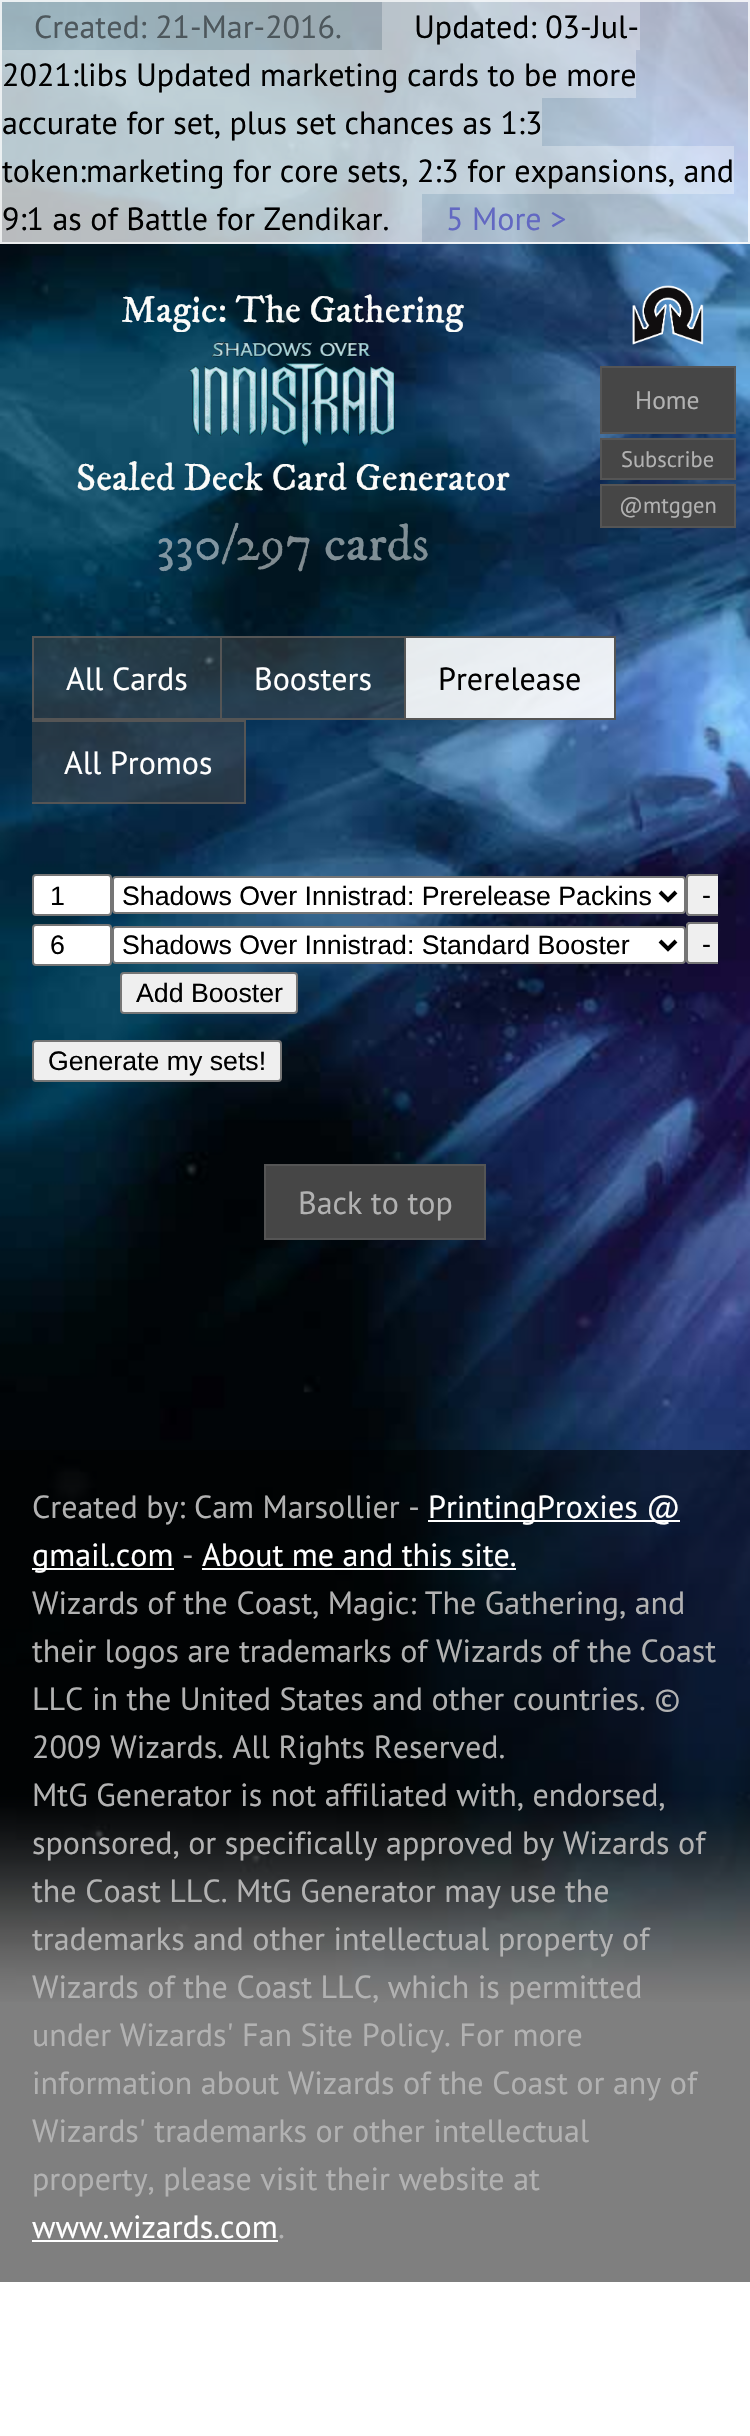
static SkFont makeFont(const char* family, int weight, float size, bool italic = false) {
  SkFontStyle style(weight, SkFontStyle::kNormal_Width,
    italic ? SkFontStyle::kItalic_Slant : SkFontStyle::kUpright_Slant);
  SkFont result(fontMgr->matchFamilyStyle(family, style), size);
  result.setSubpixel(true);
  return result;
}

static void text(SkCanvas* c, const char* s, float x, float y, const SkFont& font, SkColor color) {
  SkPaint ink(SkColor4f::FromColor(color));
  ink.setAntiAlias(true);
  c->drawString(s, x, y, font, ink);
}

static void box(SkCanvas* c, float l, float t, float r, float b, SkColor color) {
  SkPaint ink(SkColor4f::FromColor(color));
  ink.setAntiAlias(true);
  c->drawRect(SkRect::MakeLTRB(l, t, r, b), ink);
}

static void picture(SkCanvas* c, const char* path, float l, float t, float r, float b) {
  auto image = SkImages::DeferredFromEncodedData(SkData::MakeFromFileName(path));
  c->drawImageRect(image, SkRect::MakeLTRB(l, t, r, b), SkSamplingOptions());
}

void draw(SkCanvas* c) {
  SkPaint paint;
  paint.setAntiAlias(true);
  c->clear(0xffffffff);
  picture(c, "img_01.png", 0, 0, 750, 2002);
  box(c, 0, 0, 750, 244, 0x99ffffff);
  paint.setStyle(SkPaint::kStroke_Style);
  paint.setStrokeWidth(2);
  paint.setColor(0xccffffff);
  c->drawRect(SkRect::MakeLTRB(1, 1, 749, 243), paint);
  SkFont face1 = makeFont("PT Sans", 400, 32);
  text(c, "Created: 21-Mar-2016.", 34, 38, face1, 0xff4d575c);
  box(c, 382, 2, 640, 50, 0x4dffffff);
  text(c, "Updated: 03-Jul-", 414, 38, face1, 0xff000000);
  box(c, 2, 50, 636, 98, 0x4dffffff);
  text(c, "2021:libs Updated marketing cards to be more", 2, 86, face1, 0xff000000);
  box(c, 2, 98, 542, 146, 0x4dffffff);
  text(c, "accurate for set, plus set chances as 1:3", 2, 134, face1, 0xff000000);
  box(c, 2, 146, 734, 194, 0x4dffffff);
  text(c, "token:marketing for core sets, 2:3 for expansions, and", 2, 182, face1, 0xff000000);
  box(c, 2, 194, 422, 242, 0x4dffffff);
  text(c, "9:1 as of Battle for Zendikar.", 2, 230, face1, 0xff000000);
  text(c, "5 More >", 446, 230, face1, 0xff6268c2);
  SkFont face2 = makeFont("IM FELL DW Pica", 400, 38.4f);
  text(c, "Magic: The Gathering", 121, 322, face2, 0xfffbfbf9);
  picture(c, "img_02.png", 188, 342, 395, 448);
  text(c, "Sealed Deck Card Generator", 76, 490, face2, 0xfffbfbf9);
  picture(c, "img_03.png", 632, 285, 704, 345);
  paint.setStyle(SkPaint::kFill_Style);
  paint.setColor(0xff464646);
  c->drawRect(SkRect::MakeLTRB(601, 367, 735, 433), paint);
  paint.setStyle(SkPaint::kStroke_Style);
  paint.setColor(0xff555555);
  c->drawRect(SkRect::MakeLTRB(601, 367, 735, 433), paint);
  SkFont face3 = makeFont("PT Sans", 400, 25.5f);
  text(c, "Home", 635, 409, face3, 0xffb2b2b2);
  paint.setStyle(SkPaint::kFill_Style);
  paint.setColor(0xff464646);
  c->drawRect(SkRect::MakeLTRB(601, 439, 735, 479), paint);
  paint.setStyle(SkPaint::kStroke_Style);
  paint.setColor(0xff555555);
  c->drawRect(SkRect::MakeLTRB(601, 439, 735, 479), paint);
  SkFont face4 = makeFont("PT Sans", 400, 22.5f);
  text(c, "Subscribe", 621, 467, face4, 0xffb2b2b2);
  paint.setStyle(SkPaint::kFill_Style);
  paint.setColor(0xff464646);
  c->drawRect(SkRect::MakeLTRB(601, 485, 735, 527), paint);
  paint.setStyle(SkPaint::kStroke_Style);
  paint.setColor(0xff555555);
  c->drawRect(SkRect::MakeLTRB(601, 485, 735, 527), paint);
  text(c, "@mtggen", 619, 513, face4, 0xffb2b2b2);
  SkFont face5 = makeFont("IM FELL DW Pica", 400, 51);
  text(c, "330", 156, 560, face5, 0xff8096a2);
  text(c, "/", 221, 560, face5, 0xff808f96);
  text(c, "297", 235, 560, face5, 0xff808b90);
  text(c, "cards", 324, 560, face5, 0xff808f96);
  paint.setStyle(SkPaint::kFill_Style);
  paint.setColor(0x80464646);
  c->drawRect(SkRect::MakeLTRB(33, 637, 221, 719), paint);
  paint.setStyle(SkPaint::kStroke_Style);
  paint.setColor(0xff555555);
  c->drawRect(SkRect::MakeLTRB(33, 637, 221, 719), paint);
  text(c, "All Cards", 66, 690, face1, 0xffffffff);
  box(c, 222, 638, 404, 718, 0x80464646);
  box(c, 222, 636, 616, 638, 0xff555555);
  box(c, 404, 636, 406, 720, 0xff555555);
  box(c, 222, 718, 406, 720, 0xff555555);
  text(c, "Boosters", 254, 690, face1, 0xffffffff);
  box(c, 406, 638, 614, 718, 0xe6ffffff);
  box(c, 614, 636, 616, 720, 0xff555555);
  box(c, 406, 718, 616, 720, 0xff555555);
  text(c, "Prerelease", 438, 690, face1, 0xff000000);
  box(c, 32, 722, 244, 802, 0x80464646);
  box(c, 32, 720, 246, 722, 0xff555555);
  box(c, 244, 720, 246, 804, 0xff555555);
  box(c, 32, 802, 246, 804, 0xff555555);
  text(c, "All Promos", 64, 774, face1, 0xffffffff);
  paint.setStyle(SkPaint::kFill_Style);
  paint.setColor(0xffffffff);
  c->drawRoundRect(SkRect::MakeLTRB(33, 875, 111, 915), 3, 3, paint);
  paint.setStyle(SkPaint::kStroke_Style);
  paint.setColor(0xff767676);
  c->drawRoundRect(SkRect::MakeLTRB(33, 875, 111, 915), 3, 3, paint);
  SkFont face6 = makeFont("Liberation Sans", 400, 26.7f);
  text(c, "1", 50, 905, face6, 0xff000000);
  paint.setStyle(SkPaint::kFill_Style);
  paint.setColor(0xffffffff);
  c->drawRoundRect(SkRect::MakeLTRB(113, 877, 685, 913), 3, 3, paint);
  paint.setStyle(SkPaint::kStroke_Style);
  paint.setColor(0xff767676);
  c->drawRoundRect(SkRect::MakeLTRB(113, 877, 685, 913), 3, 3, paint);
  paint.setStrokeWidth(4);
  paint.setColor(0xff000000);
  c->drawPath(SkPathBuilder().moveTo(660, 892).lineTo(668, 900).lineTo(676, 892).detach(), paint);
  text(c, "Shadows Over Innistrad: Prerelease Packins", 122, 905, face6, 0xff000000);
  paint.setStyle(SkPaint::kFill_Style);
  paint.setColor(0xffefefef);
  c->drawPath(SkPathBuilder().moveTo(690, 874).lineTo(718, 874).lineTo(718, 916).lineTo(690, 916).cubicTo(688, 916, 686, 914, 686, 912).lineTo(686, 878).cubicTo(686, 876, 688, 874, 690, 874).close().detach(), paint);
  c->save();
  c->clipRect(SkRect::MakeLTRB(32, 868, 718, 1014));
  paint.setStyle(SkPaint::kStroke_Style);
  paint.setStrokeWidth(2);
  paint.setColor(0xff767676);
  c->drawRoundRect(SkRect::MakeLTRB(687, 875, 725, 915), 3, 3, paint);
  c->restore();
  text(c, "-", 702, 904, face6, 0xff000000);
  paint.setStyle(SkPaint::kFill_Style);
  paint.setColor(0xffffffff);
  c->drawRoundRect(SkRect::MakeLTRB(33, 925, 111, 965), 3, 3, paint);
  paint.setStyle(SkPaint::kStroke_Style);
  paint.setColor(0xff767676);
  c->drawRoundRect(SkRect::MakeLTRB(33, 925, 111, 965), 3, 3, paint);
  text(c, "6", 50, 954, face6, 0xff000000);
  paint.setStyle(SkPaint::kFill_Style);
  paint.setColor(0xffffffff);
  c->drawRoundRect(SkRect::MakeLTRB(113, 927, 685, 963), 3, 3, paint);
  paint.setStyle(SkPaint::kStroke_Style);
  paint.setColor(0xff767676);
  c->drawRoundRect(SkRect::MakeLTRB(113, 927, 685, 963), 3, 3, paint);
  paint.setStrokeWidth(4);
  paint.setColor(0xff000000);
  c->drawPath(SkPathBuilder().moveTo(660, 941).lineTo(668, 949).lineTo(676, 941).detach(), paint);
  text(c, "Shadows Over Innistrad: Standard Booster", 122, 954, face6, 0xff000000);
  paint.setStyle(SkPaint::kFill_Style);
  paint.setColor(0xffefefef);
  c->drawPath(SkPathBuilder().moveTo(690, 922).lineTo(718, 922).lineTo(718, 964).lineTo(690, 964).cubicTo(688, 964, 686, 962, 686, 960).lineTo(686, 926).cubicTo(686, 924, 688, 922, 690, 922).close().detach(), paint);
  c->save();
  c->clipRect(SkRect::MakeLTRB(32, 868, 718, 1014));
  paint.setStyle(SkPaint::kStroke_Style);
  paint.setStrokeWidth(2);
  paint.setColor(0xff767676);
  c->drawRoundRect(SkRect::MakeLTRB(687, 923, 725, 963), 3, 3, paint);
  c->restore();
  text(c, "-", 702, 953, face6, 0xff000000);
  paint.setStyle(SkPaint::kFill_Style);
  paint.setColor(0xffefefef);
  c->drawRoundRect(SkRect::MakeLTRB(121, 973, 297, 1013), 3, 3, paint);
  paint.setStyle(SkPaint::kStroke_Style);
  paint.setColor(0xff767676);
  c->drawRoundRect(SkRect::MakeLTRB(121, 973, 297, 1013), 3, 3, paint);
  text(c, "Add Booster", 136, 1002, face6, 0xff000000);
  paint.setStyle(SkPaint::kFill_Style);
  paint.setColor(0xffefefef);
  c->drawRoundRect(SkRect::MakeLTRB(33, 1041, 281, 1081), 3, 3, paint);
  paint.setStyle(SkPaint::kStroke_Style);
  paint.setColor(0xff767676);
  c->drawRoundRect(SkRect::MakeLTRB(33, 1041, 281, 1081), 3, 3, paint);
  text(c, "Generate my sets!", 48, 1070, face6, 0xff000000);
  paint.setStyle(SkPaint::kFill_Style);
  paint.setColor(0xff464646);
  c->drawRect(SkRect::MakeLTRB(265, 1165, 485, 1239), paint);
  paint.setStyle(SkPaint::kStroke_Style);
  paint.setColor(0xff555555);
  c->drawRect(SkRect::MakeLTRB(265, 1165, 485, 1239), paint);
  text(c, "Back to top", 298, 1214, face1, 0xffb2b2b2);
  box(c, 0, 1450, 750, 2282, 0x80000000);
  text(c, "Created by: Cam Marsollier -", 32, 1518, face1, 0xffb2b2b2);
  box(c, 428, 1520, 680, 1522, 0xffffffff);
  text(c, "PrintingProxies @", 428, 1518, face1, 0xffffffff);
  box(c, 32, 1568, 174, 1570, 0xffffffff);
  text(c, "gmail.com", 32, 1566, face1, 0xffffffff);
  text(c, "-", 182, 1566, face1, 0xffb2b2b2);
  text(c, "About me and this site.", 202, 1566, face1, 0xffffffff);
  box(c, 202, 1568, 516, 1570, 0xffffffff);
  text(c, "Wizards of the Coast, Magic: The Gathering, and", 32, 1614, face1, 0xffb2b2b2);
  text(c, "their logos are trademarks of Wizards of the Coast", 32, 1662, face1, 0xffb2b2b2);
  text(c, "LLC in the United States and other countries. ©", 32, 1710, face1, 0xffb2b2b2);
  text(c, "2009 Wizards. All Rights Reserved.", 32, 1758, face1, 0xffb2b2b2);
  text(c, "MtG Generator is not affiliated with, endorsed,", 32, 1806, face1, 0xffb2b2b2);
  text(c, "sponsored, or specifically approved by Wizards of", 32, 1854, face1, 0xffb2b2b2);
  text(c, "the Coast LLC. MtG Generator may use the", 32, 1902, face1, 0xffb2b2b2);
  text(c, "trademarks and other intellectual property of", 32, 1950, face1, 0xffb2b2b2);
  text(c, "Wizards of the Coast LLC, which is permitted", 32, 1998, face1, 0xffb2b2b2);
  text(c, "under Wizards' Fan Site Policy. For more", 32, 2046, face1, 0xffb2b2b2);
  text(c, "information about Wizards of the Coast or any of", 32, 2094, face1, 0xffb2b2b2);
  text(c, "Wizards' trademarks or other intellectual", 32, 2142, face1, 0xffb2b2b2);
  text(c, "property, please visit their website at", 32, 2190, face1, 0xffb2b2b2);
  text(c, "www.wizards.com", 32, 2238, face1, 0xffffffff);
  box(c, 32, 2240, 278, 2242, 0xffffffff);
  text(c, ".", 278, 2238, face1, 0xffb2b2b2);
}
